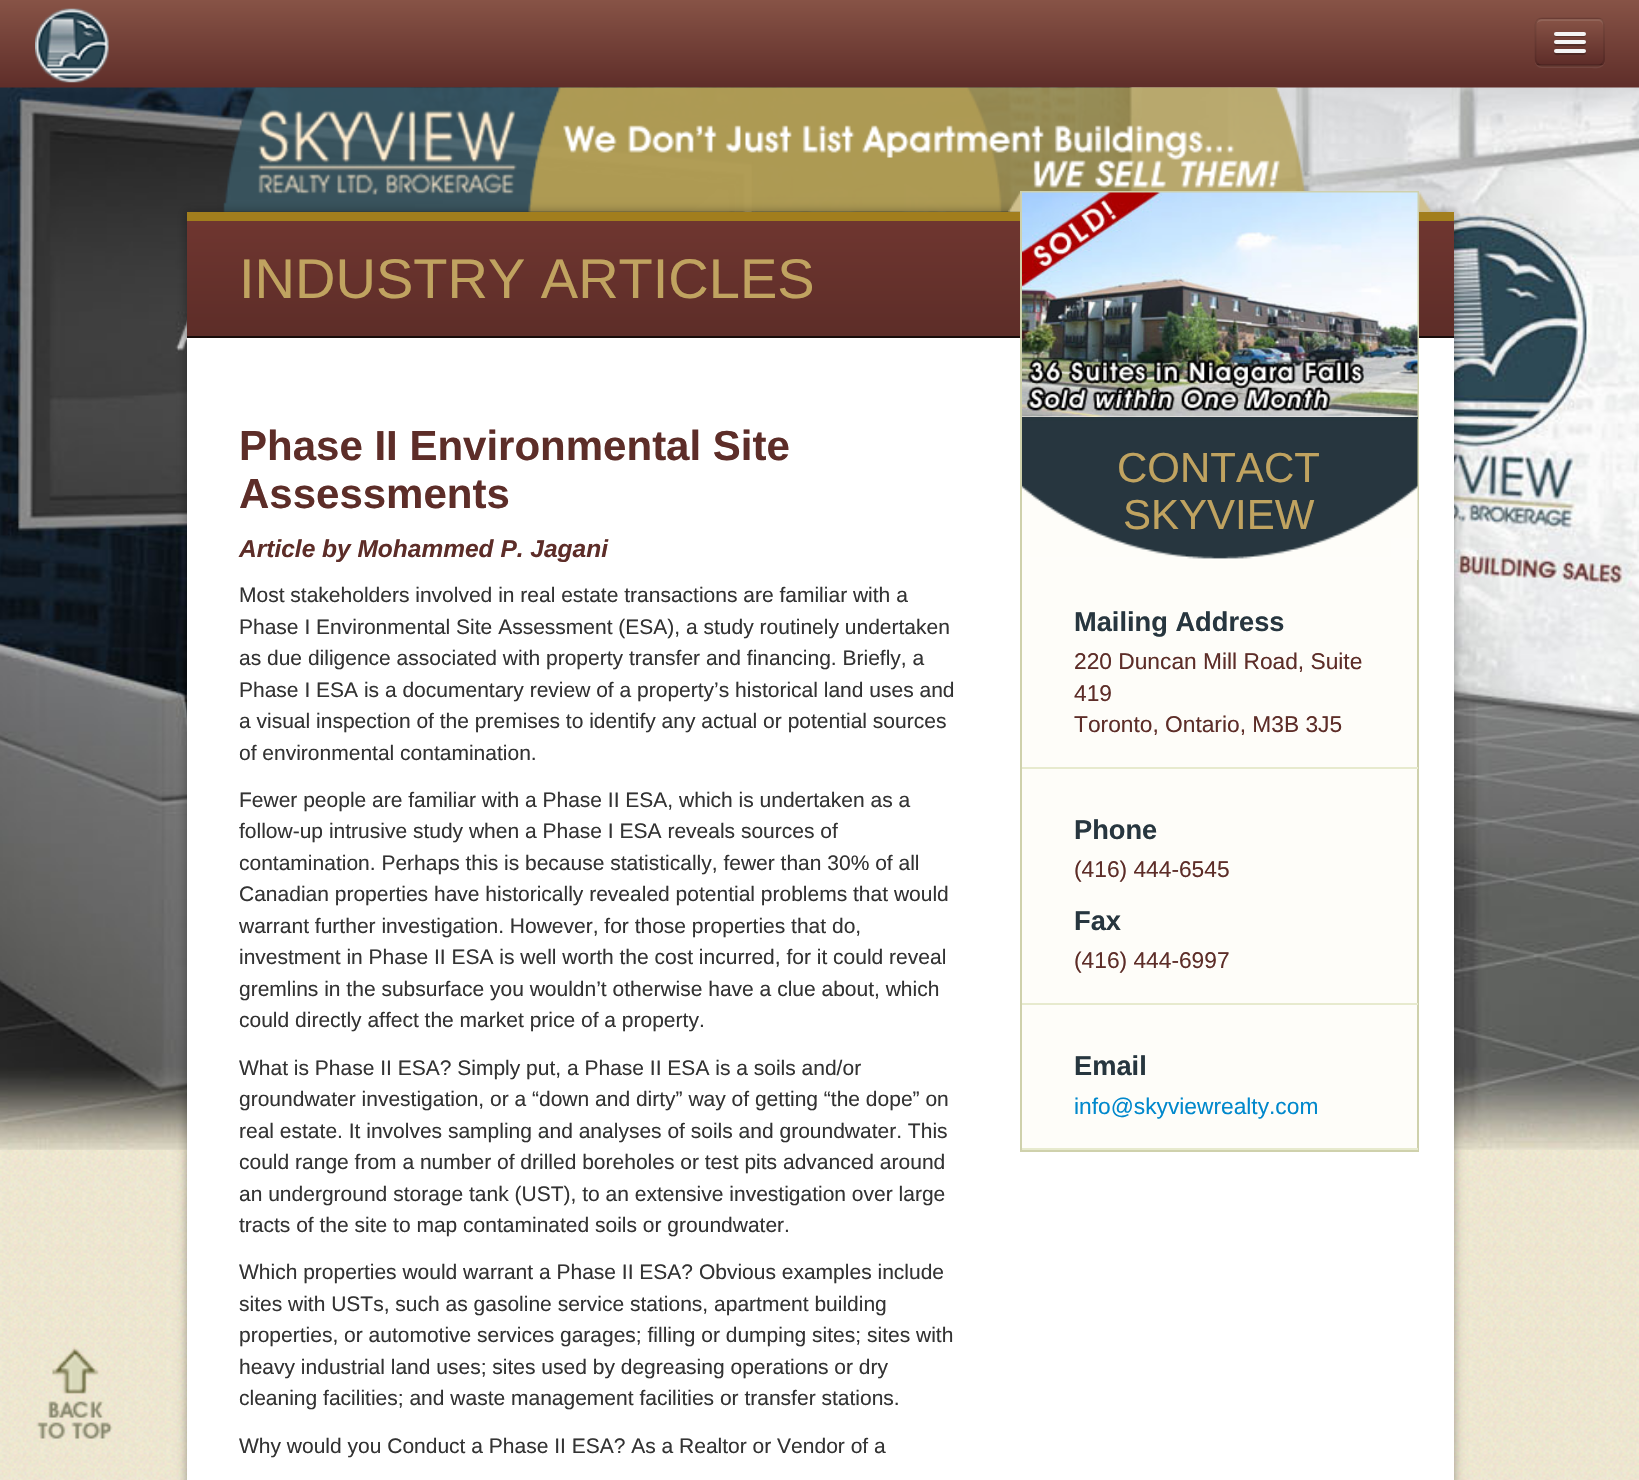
static SkFont makeFont(const char* family, int weight, float size, bool italic = false) {
  SkFontStyle style(weight, SkFontStyle::kNormal_Width,
    italic ? SkFontStyle::kItalic_Slant : SkFontStyle::kUpright_Slant);
  SkFont result(fontMgr->matchFamilyStyle(family, style), size);
  result.setSubpixel(true);
  return result;
}

static void text(SkCanvas* c, const char* s, float x, float y, const SkFont& font, SkColor color) {
  SkPaint ink(SkColor4f::FromColor(color));
  ink.setAntiAlias(true);
  c->drawString(s, x, y, font, ink);
}

static void box(SkCanvas* c, float l, float t, float r, float b, SkColor color) {
  SkPaint ink(SkColor4f::FromColor(color));
  ink.setAntiAlias(true);
  c->drawRect(SkRect::MakeLTRB(l, t, r, b), ink);
}

static void roundBox(SkCanvas* c, float l, float t, float r, float b, float radius, SkColor color) {
  SkPaint ink(SkColor4f::FromColor(color));
  ink.setAntiAlias(true);
  c->drawRoundRect(SkRect::MakeLTRB(l, t, r, b), radius, radius, ink);
}

static void picture(SkCanvas* c, const char* path, float l, float t, float r, float b) {
  auto image = SkImages::DeferredFromEncodedData(SkData::MakeFromFileName(path));
  c->drawImageRect(image, SkRect::MakeLTRB(l, t, r, b), SkSamplingOptions());
}

void draw(SkCanvas* c) {
  SkPaint paint;
  paint.setAntiAlias(true);
  c->clear(0xffffffff);
  picture(c, "img_02.png", 0, 1149, 1639, 1480);
  picture(c, "img_01.png", 36, 1347, 113, 1439);
  {
    const SkColor colors[] = {0xff875346, 0xff5d2c28};
    const float stops[] = {0, 1};
    const SkPoint ends[] = {{820, 0}, {820, 91}};
    paint.setShader(SkGradientShader::MakeLinear(ends, colors, stops, 2, SkTileMode::kClamp));
    paint.setAlpha(255);
  }
  c->drawRect(SkRect::MakeLTRB(0, 0, 1639, 88), paint);
  picture(c, "img_03.png", 35, 8, 109, 83);
  paint.setShader(nullptr);
  paint.setColor(0xff734640);
  c->drawPath(SkPathBuilder().moveTo(1535, 61).cubicTo(1535, 65, 1538, 68, 1542, 68).lineTo(1589, 68).cubicTo(1594, 68, 1603, 70, 1605, 62).lineTo(1605, 24).lineTo(1605, 61).lineTo(1603, 64).cubicTo(1599, 68, 1592, 66, 1588, 66).lineTo(1551, 66).cubicTo(1546, 66, 1537, 68, 1535, 61).close().detach(), paint);
  roundBox(c, 1535, 18, 1605, 67, 7, 0xff76433a);
  c->save();
  c->clipPath(SkPathBuilder().moveTo(1542, 18).lineTo(1598, 18).cubicTo(1602, 18, 1605, 21, 1605, 25).lineTo(1605, 60).cubicTo(1605, 64, 1602, 67, 1598, 67).lineTo(1542, 67).cubicTo(1538, 67, 1535, 64, 1535, 60).lineTo(1535, 25).cubicTo(1535, 21, 1538, 18, 1542, 18).close().detach(), true);
  {
    const SkColor colors[] = {0xff875346, 0xff5d2c28};
    const float stops[] = {0, 1};
    const SkPoint ends[] = {{1570, 19}, {1570, 65}};
    paint.setShader(SkGradientShader::MakeLinear(ends, colors, stops, 2, SkTileMode::kClamp));
    paint.setAlpha(255);
  }
  c->drawRect(SkRect::MakeLTRB(1535, 19, 1605, 65), paint);
  c->restore();
  paint.setShader(nullptr);
  paint.setColor(0x1affffff);
  c->drawPath(SkPathBuilder().moveTo(1542, 21).lineTo(1598, 21).cubicTo(1601, 21, 1603, 23, 1603, 26).lineTo(1603, 24).cubicTo(1603, 21, 1601, 19, 1598, 19).lineTo(1542, 19).cubicTo(1540, 19, 1537, 21, 1537, 23).cubicTo(1538, 22, 1540, 21, 1542, 21).close().detach(), paint);
  paint.setStyle(SkPaint::kStroke_Style);
  paint.setStrokeWidth(1.8f);
  paint.setColor(0x40000000);
  c->drawPath(SkPathBuilder().moveTo(1602, 64).cubicTo(1601, 65, 1599.5f, 65.5f, 1598, 65.5f).lineTo(1542, 65.5f).cubicTo(1540, 65.5f, 1538.5f, 65, 1537.5f, 64).detach(), paint);
  paint.setColor(0x1a000000);
  c->drawPath(SkPathBuilder().moveTo(1537.5f, 64).cubicTo(1536.5f, 62.5f, 1535.5f, 61, 1535.5f, 59.5f).lineTo(1535.5f, 24.5f).cubicTo(1535.5f, 23, 1536.5f, 21.5f, 1537.5f, 20).cubicTo(1538.5f, 19, 1540, 18.5f, 1542, 18.5f).lineTo(1598, 18.5f).cubicTo(1599.5f, 18.5f, 1601, 19, 1602, 20).cubicTo(1603, 21.5f, 1604, 23, 1604, 24.5f).lineTo(1604, 59.5f).cubicTo(1604, 61, 1603, 62.5f, 1602, 64).detach(), paint);
  paint.setStyle(SkPaint::kFill_Style);
  paint.setColor(0xff5a332c);
  c->drawPath(SkPathBuilder().moveTo(1554, 34).cubicTo(1552.5f, 38, 1560, 37, 1560.5f, 37).lineTo(1579.5f, 37).cubicTo(1580.5f, 37, 1585.5f, 38, 1586, 35.5f).cubicTo(1586, 35, 1586, 34, 1585.5f, 33.5f).cubicTo(1585.5f, 34.5f, 1584.5f, 35, 1584, 35).lineTo(1556, 35).cubicTo(1555, 35, 1554.5f, 34.5f, 1554, 34).close().detach(), paint);
  roundBox(c, 1554, 32, 1586, 36, 2, 0xfff5f5f5);
  paint.setColor(0xff542e28);
  c->drawPath(SkPathBuilder().moveTo(1554.5f, 43).cubicTo(1552, 47, 1560, 46, 1560.5f, 46).lineTo(1570, 46).cubicTo(1572.5f, 46, 1584, 46.5f, 1585.5f, 45.5f).cubicTo(1586, 44.5f, 1586, 43.5f, 1585.5f, 42.5f).lineTo(1584.5f, 43.5f).lineTo(1555.5f, 43.5f).close().detach(), paint);
  roundBox(c, 1554, 40, 1586, 44, 2, 0xfff5f5f5);
  paint.setColor(0xff4e2824);
  c->drawPath(SkPathBuilder().moveTo(1554.5f, 52).lineTo(1554, 53.5f).cubicTo(1554.5f, 56, 1559.5f, 55, 1560.5f, 55).lineTo(1579.5f, 55).cubicTo(1581, 55, 1586, 56, 1586, 53).lineTo(1585.5f, 51.5f).cubicTo(1585, 52, 1584.5f, 52.5f, 1584, 52.5f).lineTo(1555.5f, 52.5f).close().detach(), paint);
  roundBox(c, 1554, 49, 1586, 53, 2, 0xfff5f5f5);
  picture(c, "img_04.png", 0, 87, 1639, 1150);
  picture(c, "img_05.png", 223, 87, 1306, 212);
  paint.setColor(0x59000000);
  paint.setMaskFilter(SkMaskFilter::MakeBlur(kNormal_SkBlurStyle, 5));
  c->drawRect(SkRect::MakeLTRB(187, 212, 1454, 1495), paint);
  paint.setMaskFilter(nullptr);
  box(c, 187, 338, 1454, 1480, 0xffffffff);
  {
    const SkColor colors[] = {0xff6f3630, 0xff5d2d28};
    const float stops[] = {0, 1};
    const SkPoint ends[] = {{821, 220}, {821, 336}};
    paint.setShader(SkGradientShader::MakeLinear(ends, colors, stops, 2, SkTileMode::kClamp));
    paint.setAlpha(255);
  }
  c->drawRect(SkRect::MakeLTRB(187, 221, 1454, 336), paint);
  box(c, 187, 212, 1454, 221, 0xffa27e1d);
  box(c, 187, 336, 1454, 338, 0xff180c0a);
  SkFont face1 = makeFont("Liberation Sans", 400, 56);
  text(c, "INDUSTRY ARTICLES", 239, 298, face1, 0xffc0a360);
  SkFont face2 = makeFont("Liberation Sans", 700, 42);
  text(c, "Phase II Environmental Site", 239, 460, face2, 0xff5d2d28);
  text(c, "Assessments", 239, 508, face2, 0xff5d2d28);
  SkFont face3 = makeFont("Liberation Sans", 700, 24.5f, true);
  text(c, "Article by Mohammed P. Jagani", 239, 557, face3, 0xff5d2d28);
  SkFont face4 = makeFont("Liberation Sans", 400, 21);
  text(c, "Most stakeholders involved in real estate transactions are familiar with a", 239, 602, face4, 0xff333333);
  text(c, "Phase I Environmental Site Assessment (ESA), a study routinely undertaken", 239, 634, face4, 0xff333333);
  text(c, "as due diligence associated with property transfer and financing. Briefly, a", 239, 665, face4, 0xff333333);
  text(c, "Phase I ESA is a documentary review of a property’s historical land uses and", 239, 697, face4, 0xff333333);
  text(c, "a visual inspection of the premises to identify any actual or potential sources", 239, 728, face4, 0xff333333);
  text(c, "of environmental contamination.", 239, 760, face4, 0xff333333);
  text(c, "Fewer people are familiar with a Phase II ESA, which is undertaken as a", 239, 807, face4, 0xff333333);
  text(c, "follow-up intrusive study when a Phase I ESA reveals sources of", 239, 838, face4, 0xff333333);
  text(c, "contamination. Perhaps this is because statistically, fewer than 30% of all", 239, 870, face4, 0xff333333);
  text(c, "Canadian properties have historically revealed potential problems that would", 239, 901, face4, 0xff333333);
  text(c, "warrant further investigation. However, for those properties that do,", 239, 933, face4, 0xff333333);
  text(c, "investment in Phase II ESA is well worth the cost incurred, for it could reveal", 239, 964, face4, 0xff333333);
  text(c, "gremlins in the subsurface you wouldn’t otherwise have a clue about, which", 239, 996, face4, 0xff333333);
  text(c, "could directly affect the market price of a property.", 239, 1027, face4, 0xff333333);
  text(c, "What is Phase II ESA? Simply put, a Phase II ESA is a soils and/or", 239, 1075, face4, 0xff333333);
  text(c, "groundwater investigation, or a “down and dirty” way of getting “the dope” on", 239, 1106, face4, 0xff333333);
  text(c, "real estate. It involves sampling and analyses of soils and groundwater. This", 239, 1138, face4, 0xff333333);
  text(c, "could range from a number of drilled boreholes or test pits advanced around", 239, 1169, face4, 0xff333333);
  text(c, "an underground storage tank (UST), to an extensive investigation over large", 239, 1201, face4, 0xff333333);
  text(c, "tracts of the site to map contaminated soils or groundwater.", 239, 1232, face4, 0xff333333);
  text(c, "Which properties would warrant a Phase II ESA? Obvious examples include", 239, 1279, face4, 0xff333333);
  text(c, "sites with USTs, such as gasoline service stations, apartment building", 239, 1311, face4, 0xff333333);
  text(c, "properties, or automotive services garages; filling or dumping sites; sites with", 239, 1342, face4, 0xff333333);
  text(c, "heavy industrial land uses; sites used by degreasing operations or dry", 239, 1374, face4, 0xff333333);
  text(c, "cleaning facilities; and waste management facilities or transfer stations.", 239, 1405, face4, 0xff333333);
  text(c, "Why would you Conduct a Phase II ESA? As a Realtor or Vendor of a", 239, 1453, face4, 0xff333333);
  box(c, 1022, 416, 1417, 1148, 0xfffefdf9);
  paint.setStyle(SkPaint::kStroke_Style);
  paint.setStrokeWidth(2);
  paint.setShader(nullptr);
  paint.setColor(0xffcfd1ac);
  c->drawRect(SkRect::MakeLTRB(1021, 192, 1418, 1151), paint);
  picture(c, "img_06.png", 1008, 192, 1021, 212);
  picture(c, "img_07.png", 1022, 192, 1418, 417);
  picture(c, "img_08.png", 1419, 192, 1432, 212);
  picture(c, "img_09.png", 1022, 419, 1418, 560);
  box(c, 1022, 417, 1418, 419, 0xff27363f);
  SkFont face5 = makeFont("Liberation Sans", 400, 42);
  text(c, "CONTACT", 1117, 482, face5, 0xffc0a360);
  text(c, "SKYVIEW", 1123, 529, face5, 0xffc0a360);
  box(c, 1022, 767, 1418, 769, 0xffe7eace);
  SkFont face6 = makeFont("Liberation Sans", 700, 27.25f);
  text(c, "Mailing Address", 1074, 631, face6, 0xff27363f);
  SkFont face7 = makeFont("Liberation Sans", 400, 22.75f);
  text(c, "220 Duncan Mill Road, Suite", 1074, 669, face7, 0xff5d2d28);
  text(c, "419", 1074, 701, face7, 0xff5d2d28);
  text(c, "Toronto, Ontario, M3B 3J5", 1074, 732, face7, 0xff5d2d28);
  box(c, 1022, 1003, 1418, 1005, 0xffe7eace);
  text(c, "Phone", 1074, 839, face6, 0xff27363f);
  text(c, "(416) 444-6545", 1074, 877, face7, 0xff5d2d28);
  text(c, "Fax", 1074, 930, face6, 0xff27363f);
  text(c, "(416) 444-6997", 1074, 968, face7, 0xff5d2d28);
  box(c, 1022, 1148, 1418, 1150, 0xffe7eace);
  text(c, "Email", 1074, 1075, face6, 0xff27363f);
  text(c, "info@skyviewrealty.com", 1074, 1114, face7, 0xff0088cc);
}
